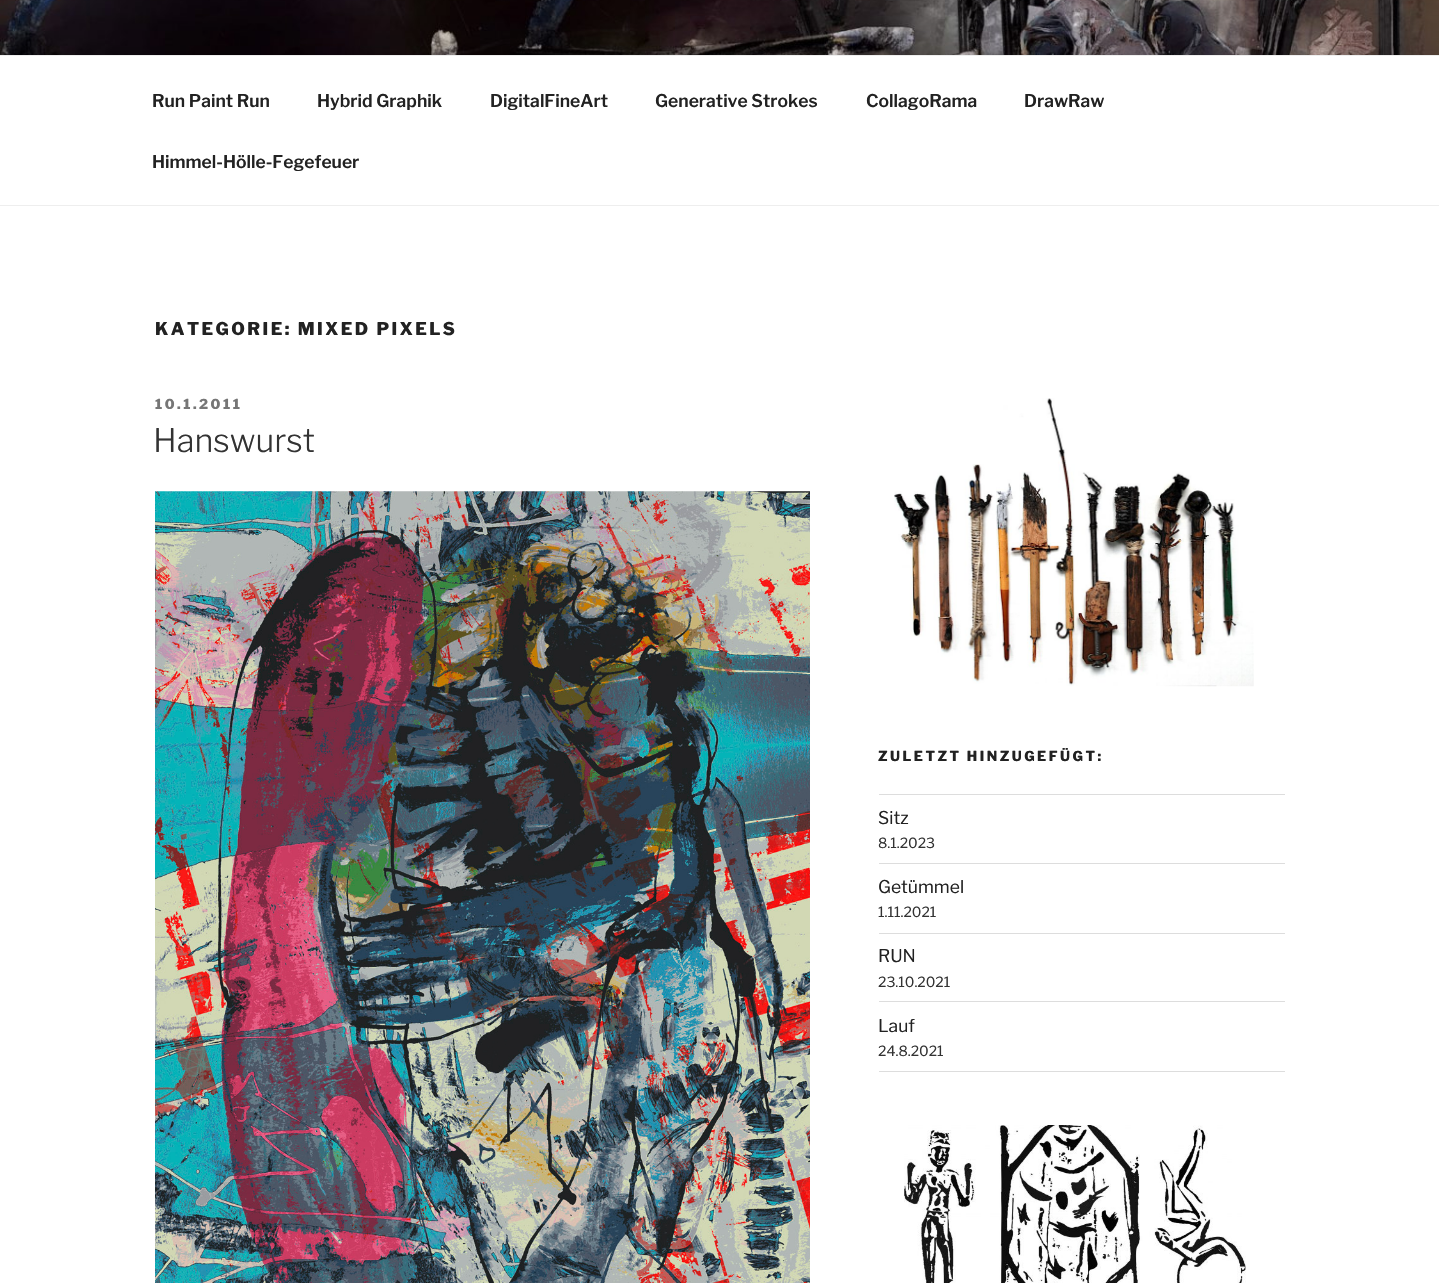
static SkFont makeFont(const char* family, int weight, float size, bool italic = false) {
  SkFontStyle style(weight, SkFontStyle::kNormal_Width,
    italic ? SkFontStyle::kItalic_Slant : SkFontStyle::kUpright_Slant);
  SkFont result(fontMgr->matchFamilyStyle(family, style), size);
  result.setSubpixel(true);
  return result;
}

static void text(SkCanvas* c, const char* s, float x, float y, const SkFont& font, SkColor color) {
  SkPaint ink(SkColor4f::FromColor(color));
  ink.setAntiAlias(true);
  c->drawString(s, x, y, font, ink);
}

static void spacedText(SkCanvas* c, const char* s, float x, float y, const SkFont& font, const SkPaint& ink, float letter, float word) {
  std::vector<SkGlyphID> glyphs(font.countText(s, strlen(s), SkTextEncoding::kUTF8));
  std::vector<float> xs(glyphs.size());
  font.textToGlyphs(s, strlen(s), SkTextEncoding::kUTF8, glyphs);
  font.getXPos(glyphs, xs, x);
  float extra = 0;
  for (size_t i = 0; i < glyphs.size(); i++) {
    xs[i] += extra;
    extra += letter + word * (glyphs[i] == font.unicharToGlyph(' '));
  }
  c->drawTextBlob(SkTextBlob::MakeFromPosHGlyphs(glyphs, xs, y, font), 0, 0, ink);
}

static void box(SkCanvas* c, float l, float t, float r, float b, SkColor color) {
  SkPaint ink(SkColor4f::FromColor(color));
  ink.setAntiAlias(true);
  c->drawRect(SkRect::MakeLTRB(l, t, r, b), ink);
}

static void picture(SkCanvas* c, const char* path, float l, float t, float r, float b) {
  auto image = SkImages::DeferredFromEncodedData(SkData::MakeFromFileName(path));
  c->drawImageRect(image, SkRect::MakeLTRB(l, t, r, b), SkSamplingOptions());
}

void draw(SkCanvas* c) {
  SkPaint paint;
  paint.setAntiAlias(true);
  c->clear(0xffffffff);
  picture(c, "img_01.png", 0, 0, 1439, 55);
  box(c, 0, 55, 1439, 56, 0xffeeeeee);
  box(c, 0, 205, 1439, 206, 0xffeeeeee);
  SkFont face1 = makeFont("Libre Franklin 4", 100, 17.5f);
  text(c, "Run Paint Run", 152, 107, face1, 0xff222222);
  text(c, "Hybrid Graphik", 317, 107, face1, 0xff222222);
  text(c, "DigitalFineArt", 490, 107, face1, 0xff222222);
  text(c, "Generative Strokes", 655, 107, face1, 0xff222222);
  text(c, "CollagoRama", 866, 107, face1, 0xff222222);
  text(c, "DrawRaw", 1024, 107, face1, 0xff222222);
  text(c, "Himmel-Hölle-Fegefeuer", 152, 168, face1, 0xff222222);
  SkFont face2 = makeFont("Libre Franklin", 100, 17.5f);
  paint.setColor(0xff222222);
  spacedText(c, "KATEGORIE: MIXED PIXELS", 155, 335, face2, paint, 2.45f, 0);
  SkFont face3 = makeFont("Libre Franklin", 100, 13.75f);
  paint.setColor(0xff767676);
  spacedText(c, "10.1.2011", 155, 409, face3, paint, 2.5f, 0);
  SkFont face4 = makeFont("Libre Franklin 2", 100, 32.5f);
  text(c, "Hanswurst", 153, 452, face4, 0xff333333);
  picture(c, "img_02.png", 155, 491, 810, 1283);
  picture(c, "img_03.png", 894, 398, 1254, 687);
  paint.setColor(0xff222222);
  spacedText(c, "ZULETZT HINZUGEFÜGT:", 878, 761, face3, paint, 2.5f, 0);
  box(c, 879, 794, 1285, 795, 0xffdddddd);
  box(c, 879, 863, 1285, 864, 0xffdddddd);
  SkFont face5 = makeFont("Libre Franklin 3", 100, 17.5f);
  text(c, "Sitz", 878, 824, face5, 0xff222222);
  SkFont face6 = makeFont("Libre Franklin 3", 100, 14);
  text(c, "8.1.2023", 878, 848, face6, 0xff333333);
  box(c, 879, 933, 1285, 934, 0xffdddddd);
  text(c, "Getümmel", 878, 893, face5, 0xff222222);
  text(c, "1.11.2021", 878, 917, face6, 0xff333333);
  box(c, 879, 1001, 1285, 1002, 0xffdddddd);
  text(c, "RUN", 878, 962, face5, 0xff222222);
  text(c, "23.10.2021", 878, 987, face6, 0xff333333);
  box(c, 879, 1071, 1285, 1072, 0xffdddddd);
  text(c, "Lauf", 878, 1032, face5, 0xff222222);
  text(c, "24.8.2021", 878, 1056, face6, 0xff333333);
  picture(c, "img_04.png", 904, 1125, 1246, 1283);
}
